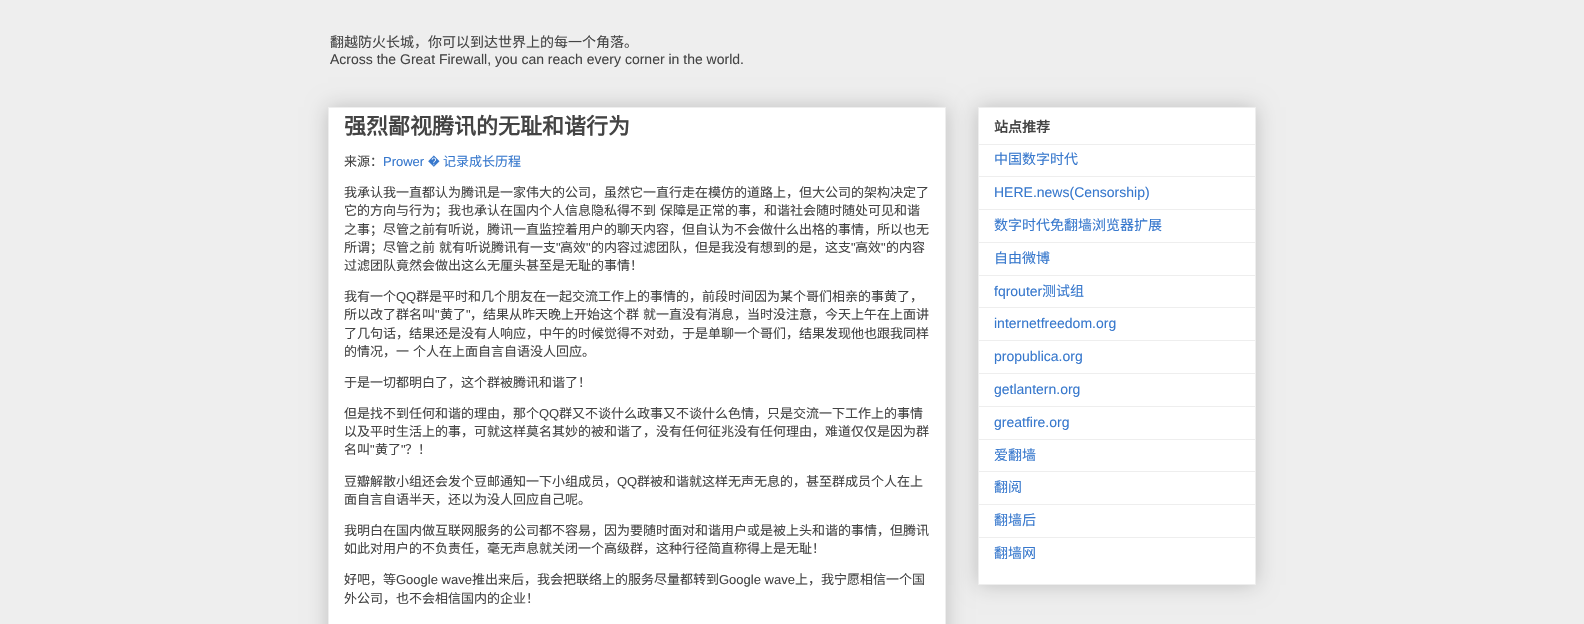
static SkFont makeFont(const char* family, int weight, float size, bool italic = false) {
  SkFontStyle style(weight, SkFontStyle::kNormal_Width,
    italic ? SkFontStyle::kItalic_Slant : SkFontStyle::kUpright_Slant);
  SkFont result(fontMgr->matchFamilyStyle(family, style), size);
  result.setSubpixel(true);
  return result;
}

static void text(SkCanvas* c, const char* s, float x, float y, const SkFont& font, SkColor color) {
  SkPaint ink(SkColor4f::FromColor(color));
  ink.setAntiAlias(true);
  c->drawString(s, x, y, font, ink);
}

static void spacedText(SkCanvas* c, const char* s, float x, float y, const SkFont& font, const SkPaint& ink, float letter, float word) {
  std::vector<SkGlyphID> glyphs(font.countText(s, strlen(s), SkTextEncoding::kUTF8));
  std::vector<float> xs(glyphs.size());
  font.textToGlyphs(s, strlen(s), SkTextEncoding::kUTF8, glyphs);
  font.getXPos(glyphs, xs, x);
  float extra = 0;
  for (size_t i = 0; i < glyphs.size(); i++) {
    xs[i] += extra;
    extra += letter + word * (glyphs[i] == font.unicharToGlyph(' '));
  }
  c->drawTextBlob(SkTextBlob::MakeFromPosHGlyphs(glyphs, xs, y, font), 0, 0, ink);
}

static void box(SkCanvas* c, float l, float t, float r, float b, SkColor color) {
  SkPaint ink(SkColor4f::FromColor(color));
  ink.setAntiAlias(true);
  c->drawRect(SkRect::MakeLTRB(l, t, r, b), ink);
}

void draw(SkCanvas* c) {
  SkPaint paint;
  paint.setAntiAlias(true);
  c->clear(0xffeeeeee);
  SkFont face1 = makeFont("Noto Sans CJK SC", 400, 14);
  text(c, "翻越防火长城，你可以到达世界上的每一个角落。", 330, 47, face1, 0xff444444);
  SkFont face2 = makeFont("Liberation Sans", 400, 14);
  text(c, "Across the Great Firewall, you can reach every corner in the world.", 330, 64, face2, 0xff444444);
  paint.setColor(0x33000000);
  paint.setMaskFilter(SkMaskFilter::MakeBlur(kNormal_SkBlurStyle, 10));
  c->drawRect(SkRect::MakeLTRB(328, 107, 946, 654), paint);
  paint.setMaskFilter(nullptr);
  paint.setColor(0xffffffff);
  c->drawRect(SkRect::MakeLTRB(328.5f, 107.5f, 945.5f, 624.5f), paint);
  paint.setStyle(SkPaint::kStroke_Style);
  paint.setStrokeWidth(1);
  paint.setColor(0xffeeeeee);
  c->drawRect(SkRect::MakeLTRB(328.5f, 107.5f, 945.5f, 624.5f), paint);
  SkFont face3 = makeFont("Noto Sans CJK SC", 700, 22);
  text(c, "强烈鄙视腾讯的无耻和谐行为", 344, 134, face3, 0xff444444);
  SkFont face4 = makeFont("Noto Sans CJK SC", 400, 13);
  text(c, "来源：", 344, 166, face4, 0xff444444);
  SkFont face5 = makeFont("Liberation Sans", 400, 13);
  text(c, "Prower", 383, 166, face5, 0xff3778cd);
  SkFont face6 = makeFont("FreeSans", 400, 13);
  text(c, "�", 428, 166, face6, 0xff3778cd);
  text(c, "记录成长历程", 443, 166, face4, 0xff3778cd);
  text(c, "我承认我一直都认为腾讯是一家伟大的公司，虽然它一直行走在模仿的道路上，但大公司的架构决定了", 344, 197, face4, 0xff444444);
  paint.setStyle(SkPaint::kFill_Style);
  paint.setColor(0xff444444);
  spacedText(c, "它的方向与行为；我也承认在国内个人信息隐私得不到 保障是正常的事，和谐社会随时随处可见和谐", 344, 215, face4, paint, 0, 1);
  text(c, "之事；尽管之前有听说，腾讯一直监控着用户的聊天内容，但自认为不会做什么出格的事情，所以也无", 344, 234, face4, 0xff444444);
  spacedText(c, "所谓；尽管之前 就有听说腾讯有一支", 344, 252, face4, paint, 0, 1);
  text(c, "\"", 556, 252, face5, 0xff444444);
  text(c, "高效", 560, 252, face4, 0xff444444);
  text(c, "\"", 586, 252, face5, 0xff444444);
  text(c, "的内容过滤团队，但是我没有想到的是，这支", 591, 252, face4, 0xff444444);
  text(c, "\"", 851, 252, face5, 0xff444444);
  text(c, "高效", 855, 252, face4, 0xff444444);
  text(c, "\"", 881, 252, face5, 0xff444444);
  text(c, "的内容", 886, 252, face4, 0xff444444);
  text(c, "过滤团队竟然会做出这么无厘头甚至是无耻的事情！", 344, 270, face4, 0xff444444);
  text(c, "我有一个", 344, 301, face4, 0xff444444);
  text(c, "QQ", 396, 301, face5, 0xff444444);
  text(c, "群是平时和几个朋友在一起交流工作上的事情的，前段时间因为某个哥们相亲的事黄了，", 416, 301, face4, 0xff444444);
  text(c, "所以改了群名叫", 344, 319, face4, 0xff444444);
  text(c, "\"", 435, 319, face5, 0xff444444);
  text(c, "黄了", 440, 319, face4, 0xff444444);
  text(c, "\"", 466, 319, face5, 0xff444444);
  spacedText(c, "，结果从昨天晚上开始这个群 就一直没有消息，当时没注意，今天上午在上面讲", 470, 319, face4, paint, 0, 1);
  text(c, "了几句话，结果还是没有人响应，中午的时候觉得不对劲，于是单聊一个哥们，结果发现他也跟我同样", 344, 338, face4, 0xff444444);
  spacedText(c, "的情况，一 个人在上面自言自语没人回应。", 344, 356, face4, paint, 0, 1);
  text(c, "于是一切都明白了，这个群被腾讯和谐了！", 344, 387, face4, 0xff444444);
  text(c, "但是找不到任何和谐的理由，那个", 344, 418, face4, 0xff444444);
  text(c, "QQ", 539, 418, face5, 0xff444444);
  text(c, "群又不谈什么政事又不谈什么色情，只是交流一下工作上的事情", 559, 418, face4, 0xff444444);
  text(c, "以及平时生活上的事，可就这样莫名其妙的被和谐了，没有任何征兆没有任何理由，难道仅仅是因为群", 344, 436, face4, 0xff444444);
  text(c, "名叫", 344, 454, face4, 0xff444444);
  text(c, "\"", 370, 454, face5, 0xff444444);
  text(c, "黄了", 375, 454, face4, 0xff444444);
  text(c, "\"", 401, 454, face5, 0xff444444);
  text(c, "？！", 405, 454, face4, 0xff444444);
  text(c, "豆瓣解散小组还会发个豆邮通知一下小组成员，", 344, 486, face4, 0xff444444);
  text(c, "QQ", 617, 486, face5, 0xff444444);
  text(c, "群被和谐就这样无声无息的，甚至群成员个人在上", 637, 486, face4, 0xff444444);
  text(c, "面自言自语半天，还以为没人回应自己呢。", 344, 504, face4, 0xff444444);
  text(c, "我明白在国内做互联网服务的公司都不容易，因为要随时面对和谐用户或是被上头和谐的事情，但腾讯", 344, 535, face4, 0xff444444);
  text(c, "如此对用户的不负责任，毫无声息就关闭一个高级群，这种行径简直称得上是无耻！", 344, 553, face4, 0xff444444);
  text(c, "好吧，等", 344, 584, face4, 0xff444444);
  text(c, "Google wave", 396, 584, face5, 0xff444444);
  text(c, "推出来后，我会把联络上的服务尽量都转到", 472, 584, face4, 0xff444444);
  text(c, "Google wave", 719, 584, face5, 0xff444444);
  text(c, "上，我宁愿相信一个国", 795, 584, face4, 0xff444444);
  text(c, "外公司，也不会相信国内的企业！", 344, 603, face4, 0xff444444);
  paint.setColor(0x33000000);
  paint.setMaskFilter(SkMaskFilter::MakeBlur(kNormal_SkBlurStyle, 10));
  c->drawRect(SkRect::MakeLTRB(978, 107, 1256, 585), paint);
  paint.setMaskFilter(nullptr);
  paint.setColor(0xffffffff);
  c->drawRect(SkRect::MakeLTRB(978.5f, 107.5f, 1255.5f, 584.5f), paint);
  paint.setStyle(SkPaint::kStroke_Style);
  paint.setColor(0xffeeeeee);
  c->drawRect(SkRect::MakeLTRB(978.5f, 107.5f, 1255.5f, 584.5f), paint);
  SkFont face7 = makeFont("Noto Sans CJK SC", 700, 14);
  text(c, "站点推荐", 994, 132, face7, 0xff444444);
  box(c, 979, 144, 1255, 145, 0xffeeeeee);
  text(c, "中国数字时代", 994, 164, face1, 0xff3778cd);
  box(c, 979, 176, 1255, 177, 0xffeeeeee);
  text(c, "HERE.news(Censorship)", 994, 197, face2, 0xff3778cd);
  box(c, 979, 209, 1255, 210, 0xffeeeeee);
  text(c, "数字时代免翻墙浏览器扩展", 994, 230, face1, 0xff3778cd);
  box(c, 979, 242, 1255, 243, 0xffeeeeee);
  text(c, "自由微博", 994, 263, face1, 0xff3778cd);
  box(c, 979, 275, 1255, 276, 0xffeeeeee);
  text(c, "fqrouter", 994, 296, face2, 0xff3778cd);
  text(c, "测试组", 1042, 296, face1, 0xff3778cd);
  box(c, 979, 307, 1255, 308, 0xffeeeeee);
  text(c, "internetfreedom.org", 994, 328, face2, 0xff3778cd);
  box(c, 979, 340, 1255, 341, 0xffeeeeee);
  text(c, "propublica.org", 994, 361, face2, 0xff3778cd);
  box(c, 979, 373, 1255, 374, 0xffeeeeee);
  text(c, "getlantern.org", 994, 394, face2, 0xff3778cd);
  box(c, 979, 406, 1255, 407, 0xffeeeeee);
  text(c, "greatfire.org", 994, 427, face2, 0xff3778cd);
  box(c, 979, 439, 1255, 440, 0xffeeeeee);
  text(c, "爱翻墙", 994, 460, face1, 0xff3778cd);
  box(c, 979, 471, 1255, 472, 0xffeeeeee);
  text(c, "翻阅", 994, 492, face1, 0xff3778cd);
  box(c, 979, 504, 1255, 505, 0xffeeeeee);
  text(c, "翻墙后", 994, 525, face1, 0xff3778cd);
  box(c, 979, 537, 1255, 538, 0xffeeeeee);
  text(c, "翻墙网", 994, 558, face1, 0xff3778cd);
}
